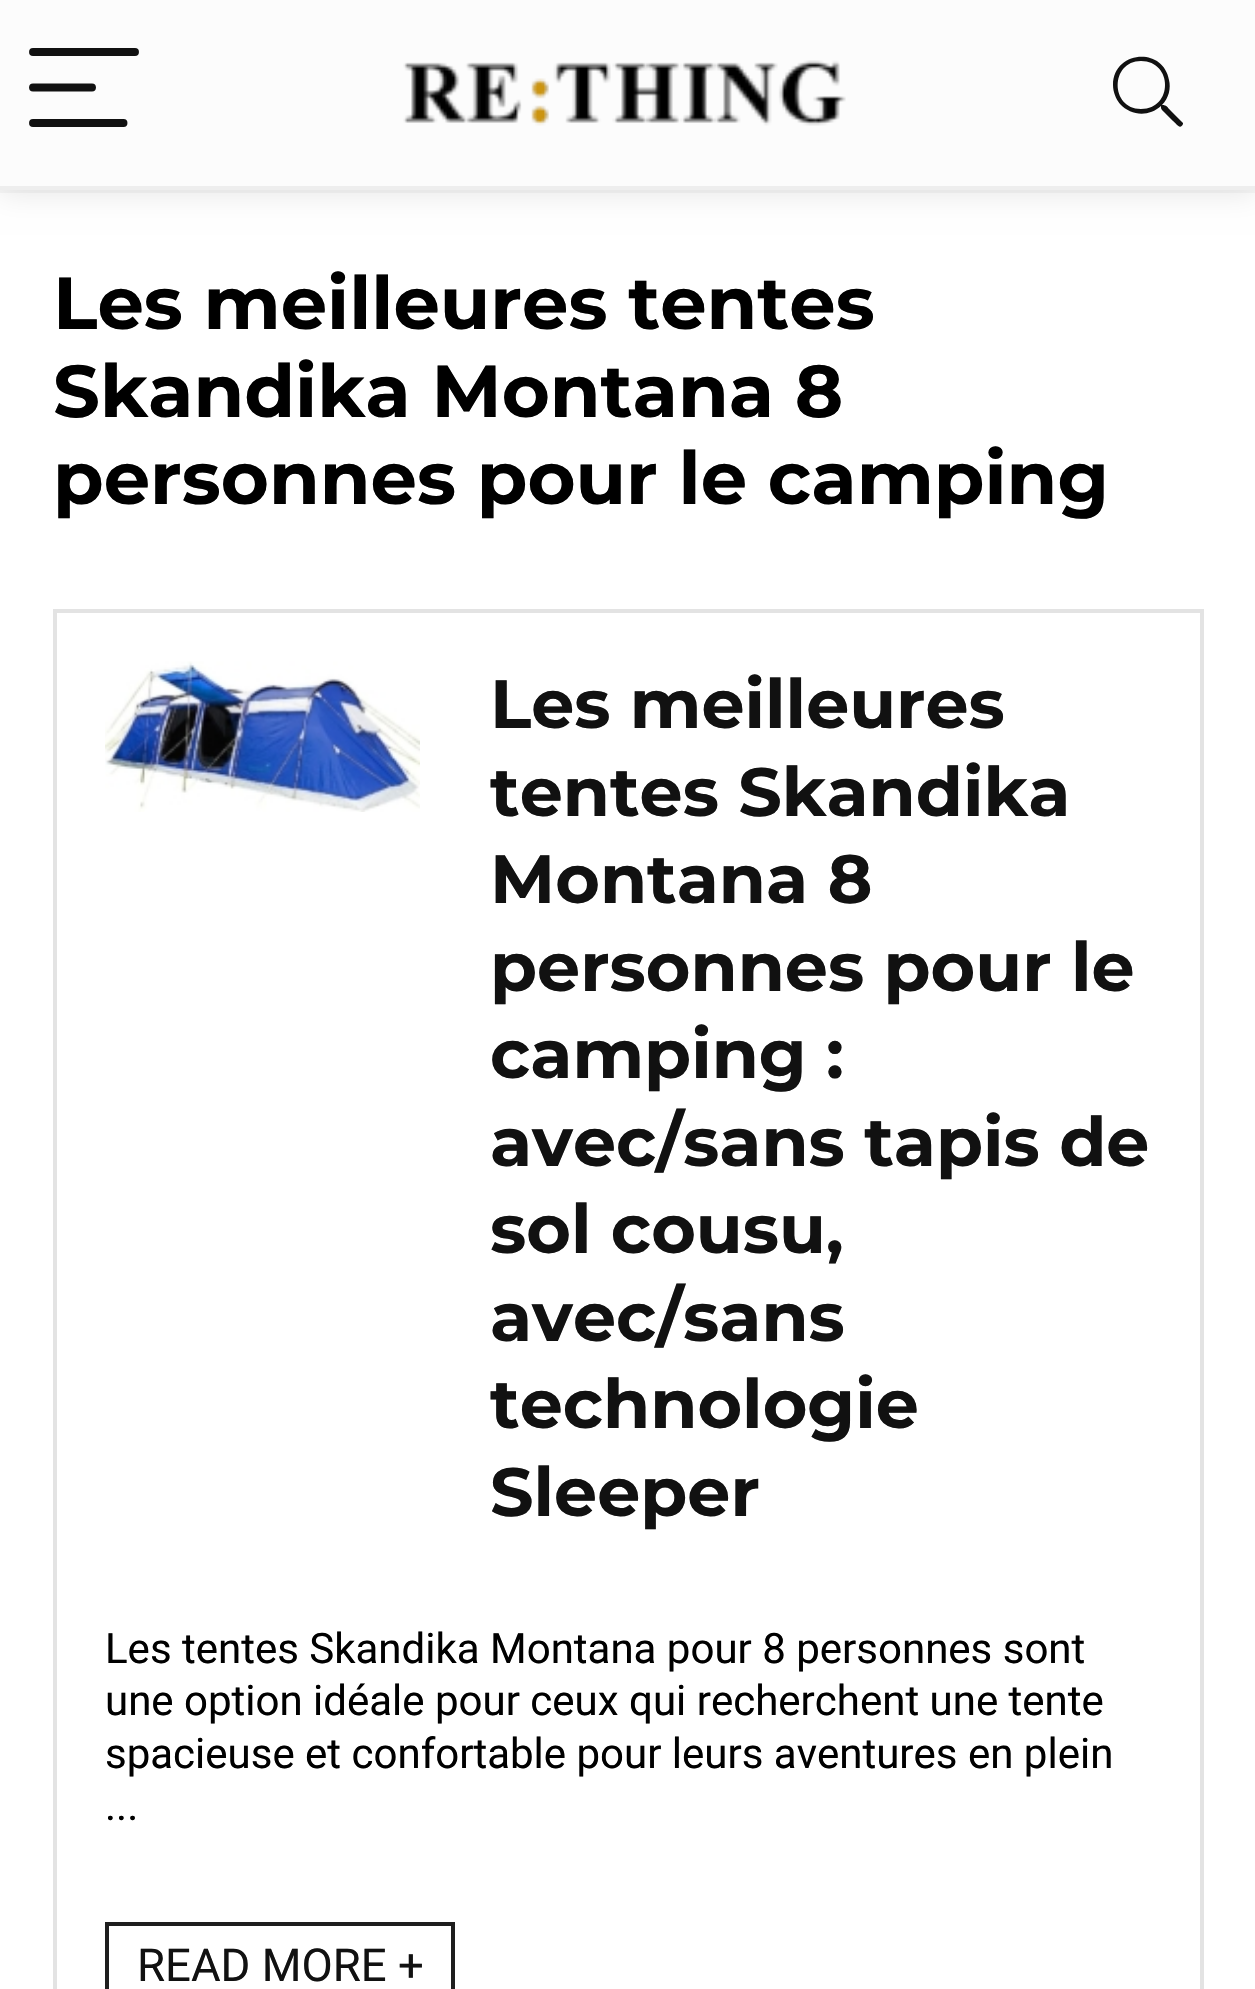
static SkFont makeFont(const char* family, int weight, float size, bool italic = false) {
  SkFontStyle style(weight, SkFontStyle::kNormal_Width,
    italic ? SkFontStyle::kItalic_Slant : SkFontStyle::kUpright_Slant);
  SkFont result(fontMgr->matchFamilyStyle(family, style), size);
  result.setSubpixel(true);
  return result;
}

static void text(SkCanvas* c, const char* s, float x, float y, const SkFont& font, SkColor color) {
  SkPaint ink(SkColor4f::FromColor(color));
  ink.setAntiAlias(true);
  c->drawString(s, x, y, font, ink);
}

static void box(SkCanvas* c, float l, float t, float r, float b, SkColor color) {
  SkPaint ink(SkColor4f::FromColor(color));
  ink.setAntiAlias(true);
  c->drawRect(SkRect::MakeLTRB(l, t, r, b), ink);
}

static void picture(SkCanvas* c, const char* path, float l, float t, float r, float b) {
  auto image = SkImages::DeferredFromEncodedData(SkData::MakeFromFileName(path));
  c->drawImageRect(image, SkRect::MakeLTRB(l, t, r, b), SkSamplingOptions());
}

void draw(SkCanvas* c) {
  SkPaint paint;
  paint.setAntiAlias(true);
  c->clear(0xffffffff);
  paint.setStyle(SkPaint::kStroke_Style);
  paint.setStrokeWidth(4);
  paint.setColor(0xfff7f7f7);
  c->drawRect(SkRect::MakeLTRB(-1, -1, 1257, 191), paint);
  paint.setStyle(SkPaint::kFill_Style);
  paint.setColor(0x1a000000);
  paint.setMaskFilter(SkMaskFilter::MakeBlur(kNormal_SkBlurStyle, 14));
  c->drawRect(SkRect::MakeLTRB(0, 4, 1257, 193), paint);
  paint.setMaskFilter(nullptr);
  box(c, 0, 0, 1255, 186, 0xfffcfcfc);
  box(c, 0, 186, 1255, 190, 0xffeeeeee);
  paint.setStyle(SkPaint::kStroke_Style);
  paint.setStrokeWidth(7.9f);
  paint.setStrokeCap(SkPaint::kRound_Cap);
  paint.setColor(0xff111111);
  c->drawPath(SkPathBuilder().moveTo(33, 52).lineTo(135, 52).detach(), paint);
  c->drawPath(SkPathBuilder().moveTo(33, 87.5f).lineTo(92, 87.5f).detach(), paint);
  c->drawPath(SkPathBuilder().moveTo(33, 123).lineTo(123.5f, 123).detach(), paint);
  picture(c, "img_01.png", 403, 60, 846, 126);
  paint.setStyle(SkPaint::kFill_Style);
  c->drawPath(SkPathBuilder().moveTo(1183, 123).lineTo(1171, 111).cubicTo(1167, 107, 1167, 105, 1162, 105).cubicTo(1169, 98, 1171, 88, 1169, 80).cubicTo(1163, 46, 1113, 51, 1113, 85).cubicTo(1113, 92, 1116, 99, 1120, 104).cubicTo(1131, 116, 1149, 117, 1161, 106).cubicTo(1161, 109, 1161, 109, 1164, 112).lineTo(1173, 121).cubicTo(1175, 122, 1180, 131, 1183, 124).close().moveTo(1141, 109).cubicTo(1110, 109, 1110, 61, 1141, 61).cubicTo(1173, 61, 1173, 109, 1141, 109).close().detach(), paint);
  SkFont face1 = makeFont("Montserrat", 700, 73.5f);
  text(c, "Les meilleures tentes", 53, 329, face1, 0xff000000);
  text(c, "Skandika Montana 8", 53, 417, face1, 0xff000000);
  text(c, "personnes pour le camping", 53, 504, face1, 0xff000000);
  paint.setStyle(SkPaint::kStroke_Style);
  paint.setStrokeWidth(4);
  paint.setStrokeCap(SkPaint::kButt_Cap);
  paint.setColor(0xffe3e3e3);
  c->drawRect(SkRect::MakeLTRB(55, 611, 1202, 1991), paint);
  picture(c, "img_02.png", 105, 661, 420, 812);
  SkFont face2 = makeFont("Montserrat", 700, 68.25f);
  text(c, "Les meilleures", 490, 728, face2, 0xff111111);
  text(c, "tentes Skandika", 490, 816, face2, 0xff111111);
  text(c, "Montana 8", 490, 903, face2, 0xff111111);
  text(c, "personnes pour le", 490, 991, face2, 0xff111111);
  text(c, "camping :", 490, 1078, face2, 0xff111111);
  text(c, "avec/sans tapis de", 490, 1166, face2, 0xff111111);
  text(c, "sol cousu,", 490, 1253, face2, 0xff111111);
  text(c, "avec/sans", 490, 1341, face2, 0xff111111);
  text(c, "technologie", 490, 1428, face2, 0xff111111);
  text(c, "Sleeper", 490, 1516, face2, 0xff111111);
  SkFont face3 = makeFont("Roboto", 400, 42);
  text(c, "Les tentes Skandika Montana pour 8 personnes sont", 105, 1663, face3, 0xff000000);
  text(c, "une option idéale pour ceux qui recherchent une tente", 105, 1715, face3, 0xff000000);
  text(c, "spacieuse et confortable pour leurs aventures en plein", 105, 1768, face3, 0xff000000);
  text(c, "...", 105, 1820, face3, 0xff000000);
  paint.setColor(0xff1e1e1e);
  c->drawRect(SkRect::MakeLTRB(107, 1924, 453, 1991), paint);
  SkFont face4 = makeFont("Roboto", 400, 45.5f);
  text(c, "READ MORE +", 137, 1981, face4, 0xff111111);
}
